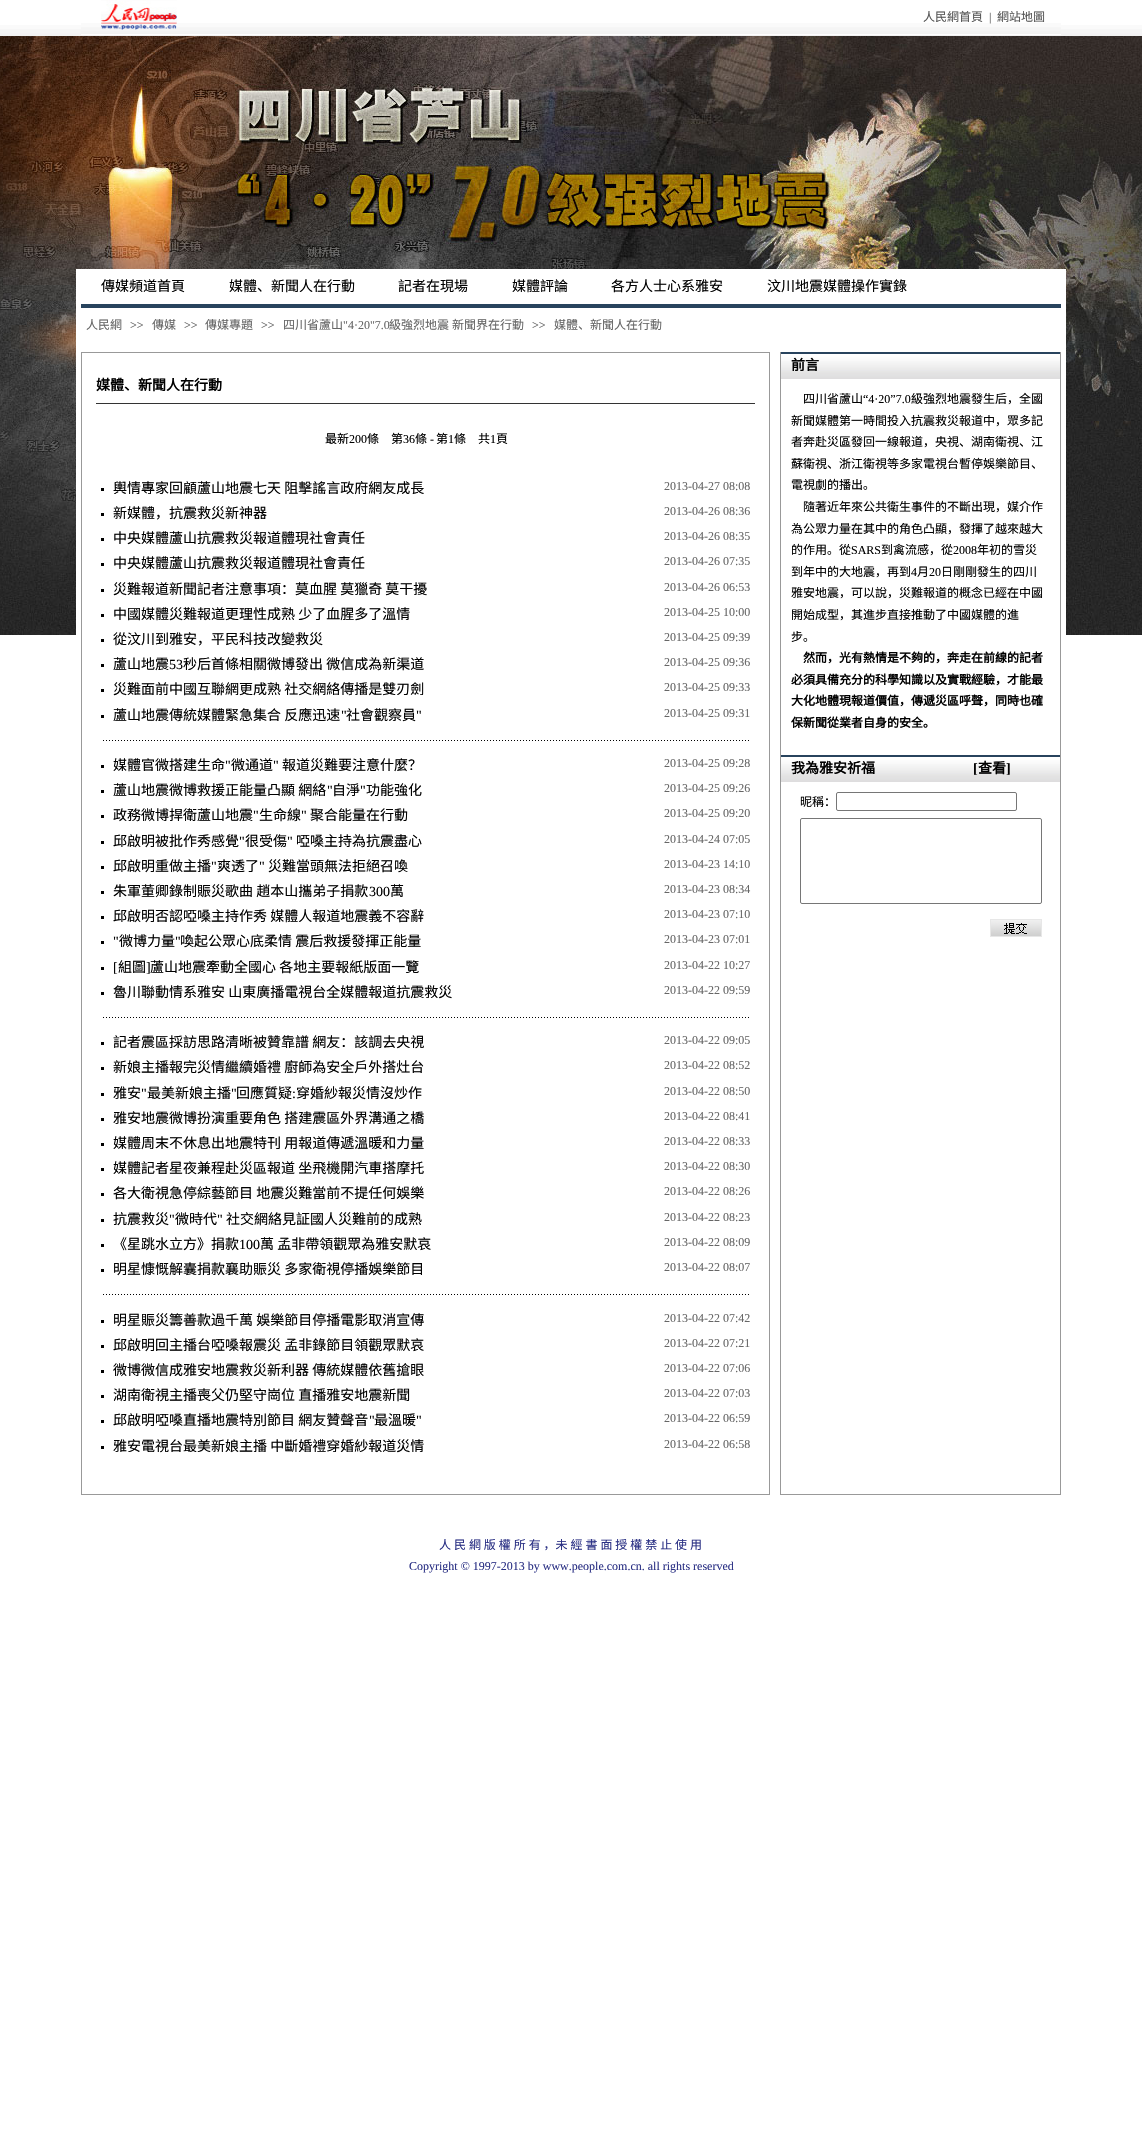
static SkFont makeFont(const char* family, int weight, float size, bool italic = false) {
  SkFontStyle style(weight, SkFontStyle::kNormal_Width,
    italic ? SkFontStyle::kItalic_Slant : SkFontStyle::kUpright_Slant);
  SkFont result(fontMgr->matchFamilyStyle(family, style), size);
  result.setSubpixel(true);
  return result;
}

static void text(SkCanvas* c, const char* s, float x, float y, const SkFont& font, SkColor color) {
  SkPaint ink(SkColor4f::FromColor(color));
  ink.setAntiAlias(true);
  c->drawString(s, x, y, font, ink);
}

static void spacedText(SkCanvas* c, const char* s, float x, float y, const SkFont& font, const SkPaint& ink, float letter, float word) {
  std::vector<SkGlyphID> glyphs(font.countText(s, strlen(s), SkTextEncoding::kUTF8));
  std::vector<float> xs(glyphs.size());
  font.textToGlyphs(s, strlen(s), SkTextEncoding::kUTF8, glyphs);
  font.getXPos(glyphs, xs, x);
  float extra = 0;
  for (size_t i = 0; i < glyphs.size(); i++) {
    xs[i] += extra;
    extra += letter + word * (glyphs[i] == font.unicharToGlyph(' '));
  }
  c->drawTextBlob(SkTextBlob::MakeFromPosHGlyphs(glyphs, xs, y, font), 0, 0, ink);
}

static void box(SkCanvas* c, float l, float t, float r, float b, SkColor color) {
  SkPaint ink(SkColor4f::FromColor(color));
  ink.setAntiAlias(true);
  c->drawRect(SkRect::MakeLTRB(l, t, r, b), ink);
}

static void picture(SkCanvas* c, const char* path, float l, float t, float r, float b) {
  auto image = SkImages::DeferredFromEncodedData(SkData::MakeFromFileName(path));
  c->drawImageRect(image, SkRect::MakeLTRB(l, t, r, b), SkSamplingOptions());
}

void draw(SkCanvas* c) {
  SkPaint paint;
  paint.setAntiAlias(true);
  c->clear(0xffffffff);
  picture(c, "img_01.png", 0, 25, 1142, 36);
  picture(c, "img_02.png", 81, 23, 1061, 35);
  picture(c, "img_03.png", 101, 0, 177, 30);
  SkFont face1 = makeFont("Noto Sans CJK SC", 400, 12);
  text(c, "人民網首頁", 923, 21, face1, 0xff565656);
  SkFont face2 = makeFont("Liberation Serif", 400, 12);
  text(c, "|", 989, 21, face2, 0xff565656);
  text(c, "網站地圖", 997, 21, face1, 0xff565656);
  picture(c, "img_04.png", 0, 36, 1142, 269);
  picture(c, "img_05.png", 0, 269, 1142, 635);
  box(c, 76, 269, 1066, 635, 0xffffffff);
  box(c, 81, 304, 1061, 308, 0xff28435d);
  SkFont face3 = makeFont("Noto Sans CJK SC", 400, 14);
  text(c, "傳媒頻道首頁", 101, 291, face3, 0xff000000);
  text(c, "媒體、新聞人在行動", 229, 291, face3, 0xff000000);
  text(c, "記者在現場", 398, 291, face3, 0xff000000);
  text(c, "媒體評論", 512, 291, face3, 0xff000000);
  text(c, "各方人士心系雅安", 611, 291, face3, 0xff000000);
  text(c, "汶川地震媒體操作實錄", 767, 291, face3, 0xff000000);
  text(c, "人民網", 86, 329, face1, 0xff666666);
  text(c, ">>", 130, 329, face2, 0xff666666);
  text(c, "傳媒", 152, 329, face1, 0xff666666);
  text(c, ">>", 184, 329, face2, 0xff666666);
  text(c, "傳媒專題", 205, 329, face1, 0xff666666);
  text(c, ">>", 261, 329, face2, 0xff666666);
  text(c, "四川省蘆山", 283, 329, face1, 0xff666666);
  text(c, "\"4·20\"7.0", 343, 329, face2, 0xff666666);
  paint.setColor(0xff666666);
  spacedText(c, "級強烈地震 新聞界在行動", 389, 329, face1, paint, 0, 0.25f);
  text(c, ">>", 532, 329, face2, 0xff666666);
  text(c, "媒體、新聞人在行動", 554, 329, face1, 0xff666666);
  picture(c, "img_06.png", 81, 352, 1061, 1495);
  box(c, 81, 352, 770, 353, 0xff999999);
  box(c, 96, 403, 755, 404, 0xff333333);
  SkFont face4 = makeFont("Noto Sans CJK SC", 700, 14);
  text(c, "媒體、新聞人在行動", 96, 390, face4, 0xff000000);
  text(c, "最新", 325, 443, face1, 0xff000000);
  text(c, "200", 349, 443, face2, 0xff000000);
  text(c, "條", 367, 443, face1, 0xff000000);
  text(c, "第", 391, 443, face1, 0xff000000);
  text(c, "36", 403, 443, face2, 0xff000000);
  text(c, "條", 415, 443, face1, 0xff000000);
  text(c, "-", 430, 443, face2, 0xff000000);
  text(c, "第", 436, 443, face1, 0xff000000);
  text(c, "1", 448, 443, face2, 0xff000000);
  text(c, "條", 454, 443, face1, 0xff000000);
  text(c, "共", 478, 443, face1, 0xff000000);
  text(c, "1", 490, 443, face2, 0xff000000);
  text(c, "頁", 496, 443, face1, 0xff000000);
  box(c, 101, 488, 104, 491, 0xff000000);
  text(c, "輿情專家回顧蘆山地震七天 阻擊謠言政府網友成長", 113, 493, face3, 0xff000000);
  text(c, "2013-04-27 08:08", 664, 490, face2, 0xff666666);
  box(c, 101, 513, 104, 516, 0xff000000);
  text(c, "新媒體，抗震救災新神器", 113, 518, face3, 0xff000000);
  text(c, "2013-04-26 08:36", 664, 515, face2, 0xff666666);
  box(c, 101, 538, 104, 541, 0xff000000);
  text(c, "中央媒體蘆山抗震救災報道體現社會責任", 113, 543, face3, 0xff000000);
  text(c, "2013-04-26 08:35", 664, 540, face2, 0xff666666);
  box(c, 101, 563, 104, 566, 0xff000000);
  text(c, "中央媒體蘆山抗震救災報道體現社會責任", 113, 568, face3, 0xff000000);
  text(c, "2013-04-26 07:35", 664, 565, face2, 0xff666666);
  box(c, 101, 589, 104, 592, 0xff000000);
  text(c, "災難報道新聞記者注意事項：莫血腥 莫獵奇 莫干擾", 113, 594, face3, 0xff000000);
  text(c, "2013-04-26 06:53", 664, 591, face2, 0xff666666);
  box(c, 101, 614, 104, 617, 0xff000000);
  text(c, "中國媒體災難報道更理性成熟 少了血腥多了溫情", 113, 619, face3, 0xff000000);
  text(c, "2013-04-25 10:00", 664, 616, face2, 0xff666666);
  box(c, 101, 639, 104, 642, 0xff000000);
  text(c, "從汶川到雅安，平民科技改變救災", 113, 644, face3, 0xff000000);
  text(c, "2013-04-25 09:39", 664, 641, face2, 0xff666666);
  box(c, 101, 664, 104, 667, 0xff000000);
  text(c, "蘆山地震", 113, 669, face3, 0xff000000);
  SkFont face5 = makeFont("Liberation Serif", 400, 14);
  text(c, "53", 169, 669, face5, 0xff000000);
  text(c, "秒后首條相關微博發出 微信成為新渠道", 183, 669, face3, 0xff000000);
  text(c, "2013-04-25 09:36", 664, 666, face2, 0xff666666);
  box(c, 101, 689, 104, 692, 0xff000000);
  text(c, "災難面前中國互聯網更成熟 社交網絡傳播是雙刃劍", 113, 694, face3, 0xff000000);
  text(c, "2013-04-25 09:33", 664, 691, face2, 0xff666666);
  box(c, 101, 715, 104, 718, 0xff000000);
  text(c, "蘆山地震傳統媒體緊急集合 反應迅速", 113, 720, face3, 0xff000000);
  text(c, "\"", 341, 720, face5, 0xff000000);
  text(c, "社會觀察員", 346, 720, face3, 0xff000000);
  text(c, "\"", 416, 720, face5, 0xff000000);
  text(c, "2013-04-25 09:31", 664, 717, face2, 0xff666666);
  picture(c, "img_07.png", 103, 740, 749, 741);
  box(c, 101, 765, 104, 768, 0xff000000);
  text(c, "媒體官微搭建生命", 113, 770, face3, 0xff000000);
  text(c, "\"", 225, 770, face5, 0xff000000);
  text(c, "微通道", 231, 770, face3, 0xff000000);
  text(c, "\"", 273, 770, face5, 0xff000000);
  text(c, "報道災難要注意什麼？", 282, 770, face3, 0xff000000);
  text(c, "2013-04-25 09:28", 664, 767, face2, 0xff666666);
  box(c, 101, 790, 104, 793, 0xff000000);
  text(c, "蘆山地震微博救援正能量凸顯 網絡", 113, 795, face3, 0xff000000);
  text(c, "\"", 327, 795, face5, 0xff000000);
  text(c, "自淨", 332, 795, face3, 0xff000000);
  text(c, "\"", 360, 795, face5, 0xff000000);
  text(c, "功能強化", 366, 795, face3, 0xff000000);
  text(c, "2013-04-25 09:26", 664, 792, face2, 0xff666666);
  box(c, 101, 815, 104, 818, 0xff000000);
  text(c, "政務微博捍衛蘆山地震", 113, 820, face3, 0xff000000);
  text(c, "\"", 253, 820, face5, 0xff000000);
  text(c, "生命線", 259, 820, face3, 0xff000000);
  text(c, "\"", 301, 820, face5, 0xff000000);
  text(c, "聚合能量在行動", 310, 820, face3, 0xff000000);
  text(c, "2013-04-25 09:20", 664, 817, face2, 0xff666666);
  box(c, 101, 841, 104, 844, 0xff000000);
  text(c, "邱啟明被批作秀感覺", 113, 846, face3, 0xff000000);
  text(c, "\"", 239, 846, face5, 0xff000000);
  text(c, "很受傷", 245, 846, face3, 0xff000000);
  text(c, "\"", 287, 846, face5, 0xff000000);
  text(c, "啞嗓主持為抗震盡心", 296, 846, face3, 0xff000000);
  text(c, "2013-04-24 07:05", 664, 843, face2, 0xff666666);
  box(c, 101, 866, 104, 869, 0xff000000);
  text(c, "邱啟明重做主播", 113, 871, face3, 0xff000000);
  text(c, "\"", 211, 871, face5, 0xff000000);
  text(c, "爽透了", 217, 871, face3, 0xff000000);
  text(c, "\"", 259, 871, face5, 0xff000000);
  text(c, "災難當頭無法拒絕召喚", 268, 871, face3, 0xff000000);
  text(c, "2013-04-23 14:10", 664, 868, face2, 0xff666666);
  box(c, 101, 891, 104, 894, 0xff000000);
  text(c, "朱軍董卿錄制賑災歌曲 趙本山攜弟子捐款", 113, 896, face3, 0xff000000);
  text(c, "300", 369, 896, face5, 0xff000000);
  text(c, "萬", 390, 896, face3, 0xff000000);
  text(c, "2013-04-23 08:34", 664, 893, face2, 0xff666666);
  box(c, 101, 916, 104, 919, 0xff000000);
  text(c, "邱啟明否認啞嗓主持作秀 媒體人報道地震義不容辭", 113, 921, face3, 0xff000000);
  text(c, "2013-04-23 07:10", 664, 918, face2, 0xff666666);
  box(c, 101, 941, 104, 944, 0xff000000);
  text(c, "\"", 113, 946, face5, 0xff000000);
  text(c, "微博力量", 119, 946, face3, 0xff000000);
  text(c, "\"", 175, 946, face5, 0xff000000);
  text(c, "喚起公眾心底柔情 震后救援發揮正能量", 180, 946, face3, 0xff000000);
  text(c, "2013-04-23 07:01", 664, 943, face2, 0xff666666);
  box(c, 101, 967, 104, 970, 0xff000000);
  text(c, "[", 113, 972, face5, 0xff000000);
  text(c, "組圖", 118, 972, face3, 0xff000000);
  text(c, "]", 146, 972, face5, 0xff000000);
  text(c, "蘆山地震牽動全國心 各地主要報紙版面一覽", 150, 972, face3, 0xff000000);
  text(c, "2013-04-22 10:27", 664, 969, face2, 0xff666666);
  box(c, 101, 992, 104, 995, 0xff000000);
  text(c, "魯川聯動情系雅安 山東廣播電視台全媒體報道抗震救災", 113, 997, face3, 0xff000000);
  text(c, "2013-04-22 09:59", 664, 994, face2, 0xff666666);
  picture(c, "img_07.png", 103, 1017, 749, 1018);
  box(c, 101, 1042, 104, 1045, 0xff000000);
  text(c, "記者震區採訪思路清晰被贊靠譜 網友：該調去央視", 113, 1047, face3, 0xff000000);
  text(c, "2013-04-22 09:05", 664, 1044, face2, 0xff666666);
  box(c, 101, 1067, 104, 1070, 0xff000000);
  text(c, "新娘主播報完災情繼續婚禮 廚師為安全戶外搭灶台", 113, 1072, face3, 0xff000000);
  text(c, "2013-04-22 08:52", 664, 1069, face2, 0xff666666);
  box(c, 101, 1093, 104, 1096, 0xff000000);
  text(c, "雅安", 113, 1098, face3, 0xff000000);
  text(c, "\"", 141, 1098, face5, 0xff000000);
  text(c, "最美新娘主播", 147, 1098, face3, 0xff000000);
  text(c, "\"", 231, 1098, face5, 0xff000000);
  text(c, "回應質疑", 236, 1098, face3, 0xff000000);
  text(c, "穿婚紗報災情沒炒作", 296, 1098, face3, 0xff000000);
  text(c, "2013-04-22 08:50", 664, 1095, face2, 0xff666666);
  text(c, ":", 292, 1098, face5, 0xff000000);
  box(c, 101, 1118, 104, 1121, 0xff000000);
  text(c, "雅安地震微博扮演重要角色 搭建震區外界溝通之橋", 113, 1123, face3, 0xff000000);
  text(c, "2013-04-22 08:41", 664, 1120, face2, 0xff666666);
  box(c, 101, 1143, 104, 1146, 0xff000000);
  text(c, "媒體周末不休息出地震特刊 用報道傳遞溫暖和力量", 113, 1148, face3, 0xff000000);
  text(c, "2013-04-22 08:33", 664, 1145, face2, 0xff666666);
  box(c, 101, 1168, 104, 1171, 0xff000000);
  text(c, "媒體記者星夜兼程赴災區報道 坐飛機開汽車搭摩托", 113, 1173, face3, 0xff000000);
  text(c, "2013-04-22 08:30", 664, 1170, face2, 0xff666666);
  box(c, 101, 1193, 104, 1196, 0xff000000);
  text(c, "各大衛視急停綜藝節目 地震災難當前不提任何娛樂", 113, 1198, face3, 0xff000000);
  text(c, "2013-04-22 08:26", 664, 1195, face2, 0xff666666);
  box(c, 101, 1219, 104, 1222, 0xff000000);
  text(c, "抗震救災", 113, 1224, face3, 0xff000000);
  text(c, "\"", 169, 1224, face5, 0xff000000);
  text(c, "微時代", 175, 1224, face3, 0xff000000);
  text(c, "\"", 217, 1224, face5, 0xff000000);
  text(c, "社交網絡見証國人災難前的成熟", 226, 1224, face3, 0xff000000);
  text(c, "2013-04-22 08:23", 664, 1221, face2, 0xff666666);
  box(c, 101, 1244, 104, 1247, 0xff000000);
  text(c, "《星跳水立方》捐款", 113, 1249, face3, 0xff000000);
  text(c, "100", 239, 1249, face5, 0xff000000);
  text(c, "萬 孟非帶領觀眾為雅安默哀", 260, 1249, face3, 0xff000000);
  text(c, "2013-04-22 08:09", 664, 1246, face2, 0xff666666);
  box(c, 101, 1269, 104, 1272, 0xff000000);
  text(c, "明星慷慨解囊捐款襄助賑災 多家衛視停播娛樂節目", 113, 1274, face3, 0xff000000);
  text(c, "2013-04-22 08:07", 664, 1271, face2, 0xff666666);
  picture(c, "img_07.png", 103, 1294, 749, 1295);
  box(c, 101, 1320, 104, 1323, 0xff000000);
  text(c, "明星賑災籌善款過千萬 娛樂節目停播電影取消宣傳", 113, 1325, face3, 0xff000000);
  text(c, "2013-04-22 07:42", 664, 1322, face2, 0xff666666);
  box(c, 101, 1345, 104, 1348, 0xff000000);
  text(c, "邱啟明回主播台啞嗓報震災 孟非錄節目領觀眾默哀", 113, 1350, face3, 0xff000000);
  text(c, "2013-04-22 07:21", 664, 1347, face2, 0xff666666);
  box(c, 101, 1370, 104, 1373, 0xff000000);
  text(c, "微博微信成雅安地震救災新利器 傳統媒體依舊搶眼", 113, 1375, face3, 0xff000000);
  text(c, "2013-04-22 07:06", 664, 1372, face2, 0xff666666);
  box(c, 101, 1395, 104, 1398, 0xff000000);
  text(c, "湖南衛視主播喪父仍堅守崗位 直播雅安地震新聞", 113, 1400, face3, 0xff000000);
  text(c, "2013-04-22 07:03", 664, 1397, face2, 0xff666666);
  box(c, 101, 1420, 104, 1423, 0xff000000);
  text(c, "邱啟明啞嗓直播地震特別節目 網友贊聲音", 113, 1425, face3, 0xff000000);
  text(c, "\"", 369, 1425, face5, 0xff000000);
  text(c, "最溫暖", 374, 1425, face3, 0xff000000);
  text(c, "\"", 416, 1425, face5, 0xff000000);
  text(c, "2013-04-22 06:59", 664, 1422, face2, 0xff666666);
  box(c, 101, 1446, 104, 1449, 0xff000000);
  text(c, "雅安電視台最美新娘主播 中斷婚禮穿婚紗報道災情", 113, 1451, face3, 0xff000000);
  text(c, "2013-04-22 06:58", 664, 1448, face2, 0xff666666);
  picture(c, "img_08.png", 781, 352, 1060, 379);
  text(c, "前言", 791, 370, face4, 0xff000000);
  text(c, "四川省蘆山", 803, 403, face1, 0xff000000);
  text(c, "“4·20”7.0", 863, 403, face2, 0xff000000);
  text(c, "級強烈地震發生后，全國", 911, 403, face1, 0xff000000);
  text(c, "新聞媒體第一時間投入抗震救災報道中，眾多記", 791, 425, face1, 0xff000000);
  text(c, "者奔赴災區發回一線報道，央視、湖南衛視、江", 791, 446, face1, 0xff000000);
  text(c, "蘇衛視、浙江衛視等多家電視台暫停娛樂節目、", 791, 468, face1, 0xff000000);
  text(c, "電視劇的播出。", 791, 489, face1, 0xff000000);
  text(c, "隨著近年來公共衛生事件的不斷出現，媒介作", 803, 511, face1, 0xff000000);
  text(c, "為公眾力量在其中的角色凸顯，發揮了越來越大", 791, 533, face1, 0xff000000);
  text(c, "的作用。從", 791, 554, face1, 0xff000000);
  text(c, "SARS", 851, 554, face2, 0xff000000);
  text(c, "到禽流感，從", 881, 554, face1, 0xff000000);
  text(c, "2008", 953, 554, face2, 0xff000000);
  text(c, "年初的雪災", 977, 554, face1, 0xff000000);
  text(c, "到年中的大地震，再到", 791, 576, face1, 0xff000000);
  text(c, "4", 911, 576, face2, 0xff000000);
  text(c, "月", 917, 576, face1, 0xff000000);
  text(c, "20", 929, 576, face2, 0xff000000);
  text(c, "日剛剛發生的四川", 941, 576, face1, 0xff000000);
  text(c, "雅安地震，可以說，災難報道的概念已經在中國", 791, 597, face1, 0xff000000);
  text(c, "開始成型，其進步直接推動了中國媒體的進", 791, 619, face1, 0xff000000);
  text(c, "步。", 791, 641, face1, 0xff000000);
  SkFont face6 = makeFont("Noto Sans CJK SC", 700, 12);
  text(c, "然而，光有熱情是不夠的，奔走在前線的記者", 803, 662, face6, 0xff000000);
  text(c, "必須具備充分的科學知識以及實戰經驗，才能最", 791, 684, face6, 0xff000000);
  text(c, "大化地體現報道價值，傳遞災區呼聲，同時也確", 791, 705, face6, 0xff000000);
  text(c, "保新聞從業者自身的安全。", 791, 727, face6, 0xff000000);
  picture(c, "img_08.png", 781, 755, 1060, 782);
  text(c, "我為雅安祈福", 791, 773, face4, 0xff000000);
  SkFont face7 = makeFont("Liberation Serif", 700, 14);
  text(c, "[", 973, 773, face7, 0xff000000);
  text(c, "查看", 978, 773, face4, 0xff000000);
  text(c, "]", 1006, 773, face7, 0xff000000);
  text(c, "昵稱：", 800, 806, face1, 0xff000000);
  paint.setStyle(SkPaint::kStroke_Style);
  paint.setStrokeWidth(1);
  paint.setColor(0xff767676);
  c->drawRoundRect(SkRect::MakeLTRB(836.5f, 792.5f, 1016.5f, 810.5f), 1.5f, 1.5f, paint);
  c->drawRoundRect(SkRect::MakeLTRB(800.5f, 818.5f, 1041.5f, 903.5f), 1.5f, 1.5f, paint);
  picture(c, "img_09.png", 990, 919, 1042, 937);
  picture(c, "img_10.png", 82, 1494, 1060, 1495);
  paint.setStyle(SkPaint::kFill_Style);
  paint.setColor(0xff2a3084);
  spacedText(c, "人 民 網 版 權 所 有 ，未 經 書 面 授 權 禁 止 使 用", 439, 1549, face1, paint, 0, 0.25f);
  text(c, "Copyright © 1997-2013 by www.people.com.cn. all rights reserved", 409, 1570, face2, 0xff2a3084);
}
